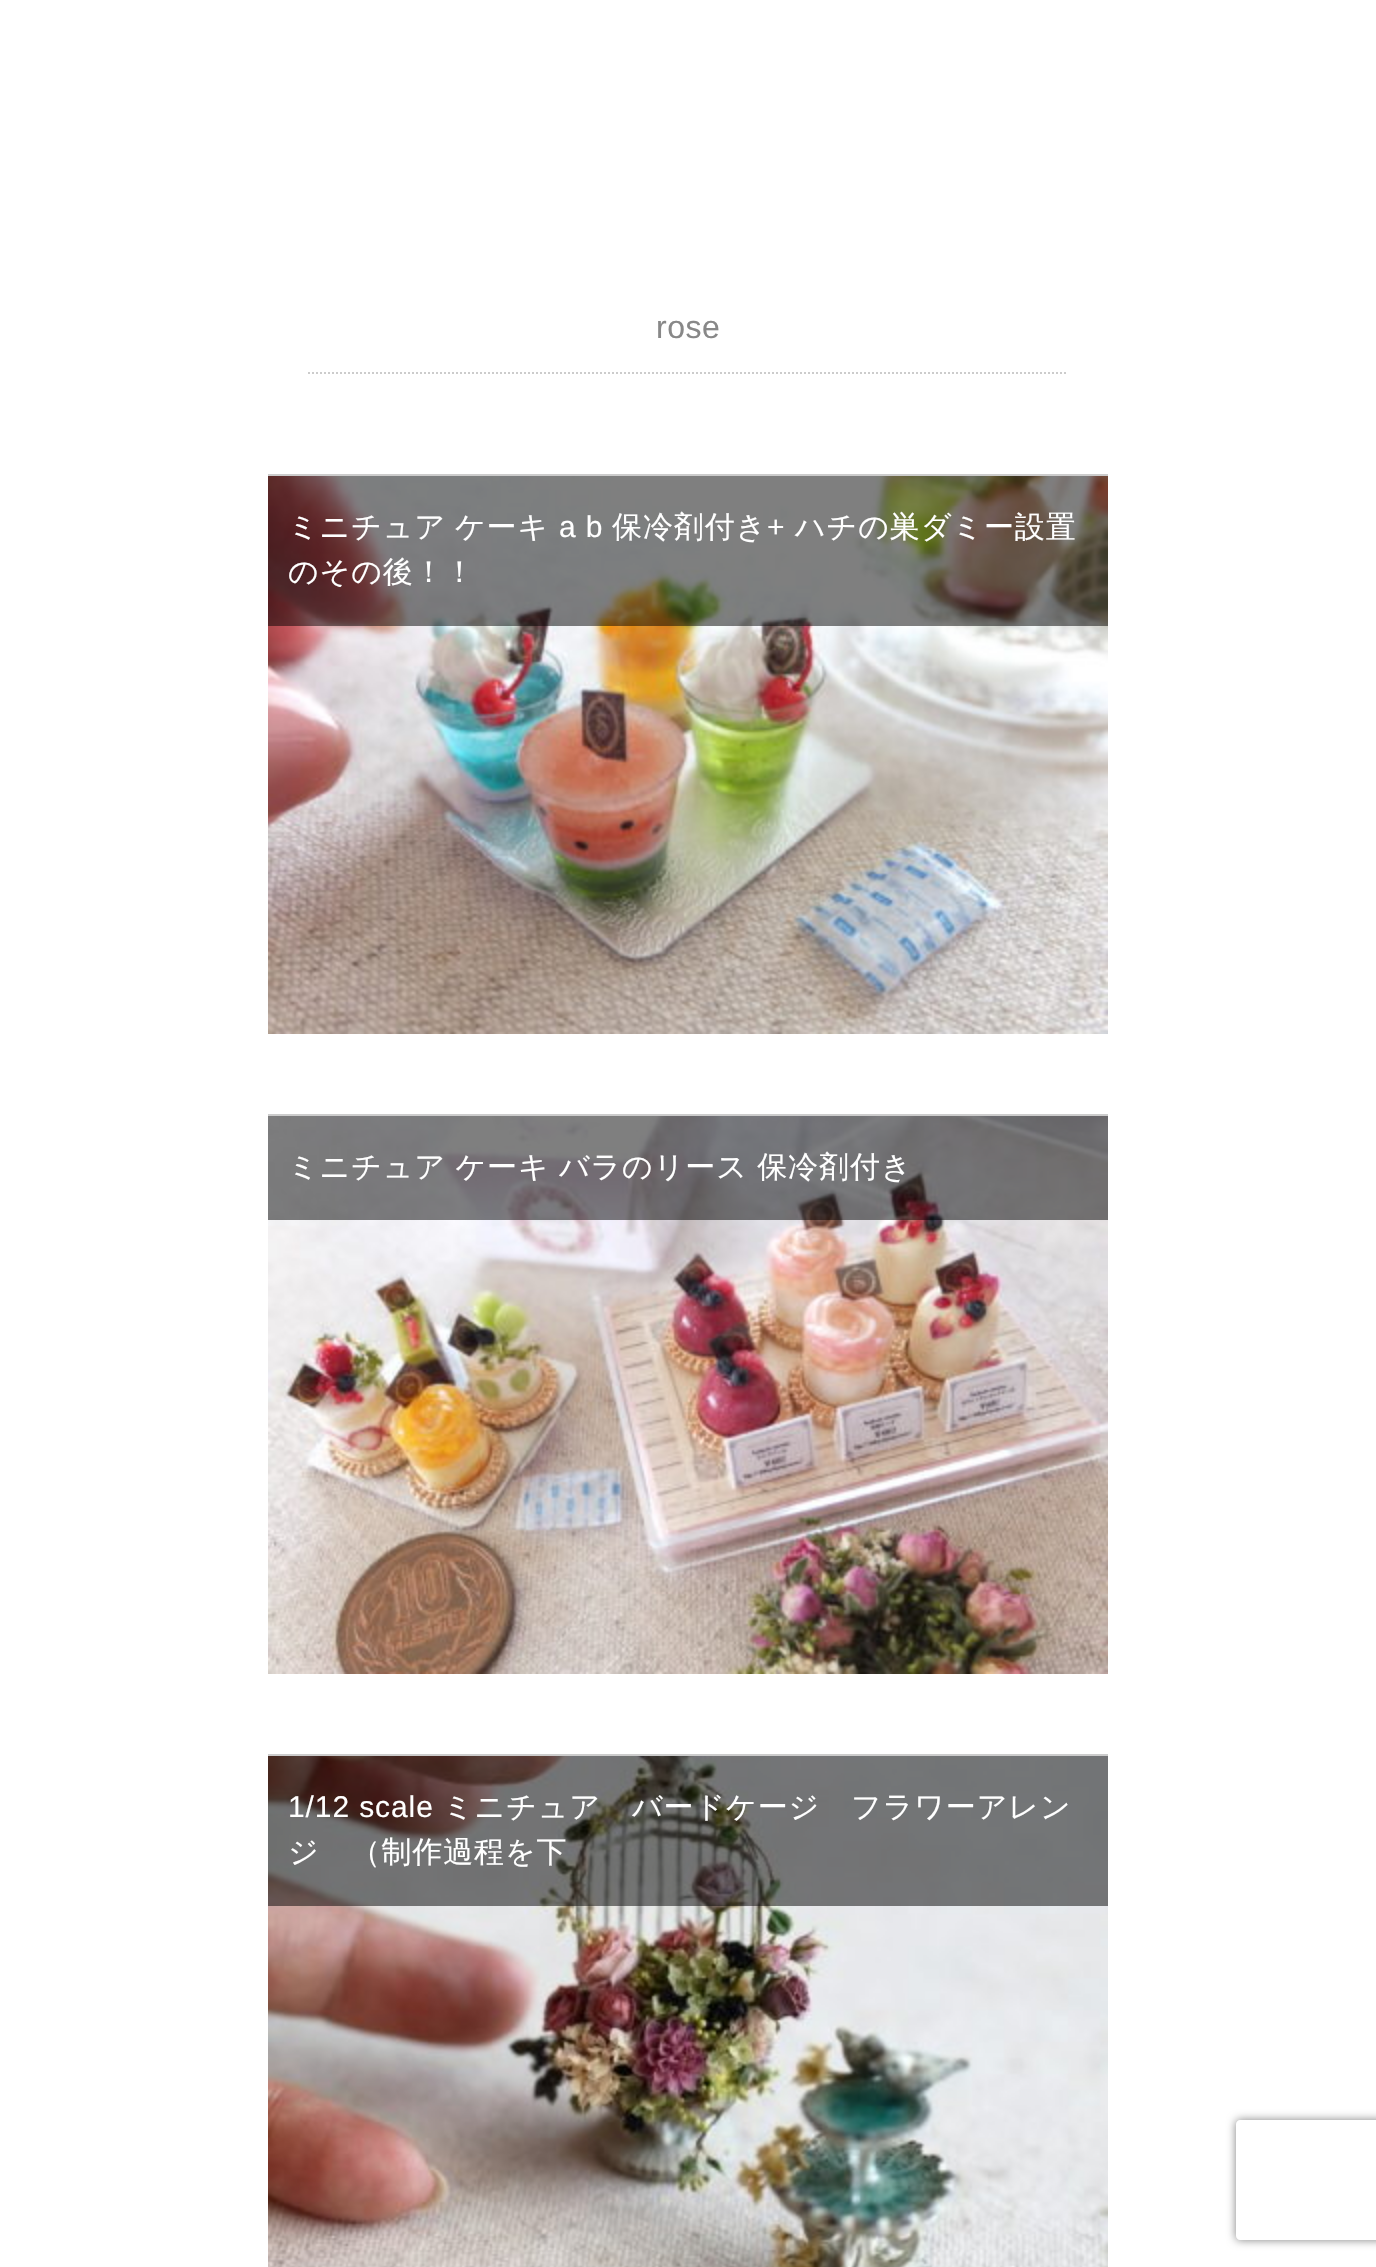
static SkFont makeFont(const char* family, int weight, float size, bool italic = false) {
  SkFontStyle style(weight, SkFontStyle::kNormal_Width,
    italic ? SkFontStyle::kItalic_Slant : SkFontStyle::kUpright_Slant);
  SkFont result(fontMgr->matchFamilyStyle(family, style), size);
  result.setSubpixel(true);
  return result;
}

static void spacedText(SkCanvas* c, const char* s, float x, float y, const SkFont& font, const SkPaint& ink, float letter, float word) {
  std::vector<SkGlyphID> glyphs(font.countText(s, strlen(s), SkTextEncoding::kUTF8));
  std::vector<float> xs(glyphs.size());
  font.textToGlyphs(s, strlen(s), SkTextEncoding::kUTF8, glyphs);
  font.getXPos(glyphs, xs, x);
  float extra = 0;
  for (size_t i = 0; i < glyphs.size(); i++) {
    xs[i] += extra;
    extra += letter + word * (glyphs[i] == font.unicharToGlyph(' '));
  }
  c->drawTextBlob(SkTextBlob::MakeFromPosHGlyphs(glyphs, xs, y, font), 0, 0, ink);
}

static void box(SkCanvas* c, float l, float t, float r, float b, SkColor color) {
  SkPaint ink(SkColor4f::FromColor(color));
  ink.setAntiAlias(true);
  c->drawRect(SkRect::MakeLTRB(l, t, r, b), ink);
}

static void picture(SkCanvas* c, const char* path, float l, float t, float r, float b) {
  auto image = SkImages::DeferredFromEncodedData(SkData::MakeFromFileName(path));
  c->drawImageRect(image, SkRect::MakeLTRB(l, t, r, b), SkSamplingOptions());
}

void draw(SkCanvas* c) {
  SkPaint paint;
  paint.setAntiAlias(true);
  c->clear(0xffffffff);
  paint.setStyle(SkPaint::kStroke_Style);
  paint.setStrokeWidth(2);
  paint.setColor(0xffcccccc);
  paint.setPathEffect(SkDashPathEffect::Make({{2, 2}}, 0));
  c->drawPath(SkPathBuilder().moveTo(308, 373).lineTo(1068, 373).detach(), paint);
  paint.setPathEffect(nullptr);
  SkFont face1 = makeFont("Liberation Sans", 400, 32);
  paint.setStyle(SkPaint::kFill_Style);
  paint.setColor(0xff888888);
  spacedText(c, "rose", 656, 338, face1, paint, 0.5f, 0);
  picture(c, "img_01.png", 268, 476, 1108, 1034);
  box(c, 268, 476, 1108, 626, 0x80000000);
  box(c, 268, 474, 1108, 476, 0xffcccccc);
  SkFont face2 = makeFont("WenQuanYi Zen Hei", 500, 30);
  paint.setColor(0xffffffff);
  spacedText(c, "ミニチュア", 288, 537, face2, paint, 0.9f, 0);
  spacedText(c, "ケーキ", 455, 537, face2, paint, 0.9f, 0);
  SkFont face3 = makeFont("Liberation Sans", 400, 30);
  spacedText(c, "a b", 559, 537, face3, paint, 0.9f, 0);
  spacedText(c, "保冷剤付き", 612, 537, face2, paint, 0.9f, 0);
  spacedText(c, "+", 767, 537, face3, paint, 0.9f, 0);
  spacedText(c, "ハチの巣ダミー設置", 795, 537, face2, paint, 0.9f, 0);
  spacedText(c, "のその後！！", 288, 582, face2, paint, 0.9f, 0);
  picture(c, "img_02.png", 268, 1116, 1108, 1674);
  box(c, 268, 1116, 1108, 1220, 0x80000000);
  box(c, 268, 1114, 1108, 1116, 0xffcccccc);
  spacedText(c, "ミニチュア ケーキ バラのリース 保冷剤付き", 288, 1177, face2, paint, 0.9f, -0.5f);
  picture(c, "img_03.png", 268, 1756, 1108, 2267);
  box(c, 268, 1756, 1108, 1906, 0x80000000);
  box(c, 268, 1754, 1108, 1756, 0xffcccccc);
  spacedText(c, "1/12 scale", 288, 1817, face3, paint, 0.9f, 0);
  spacedText(c, "ミニチュア　バードケージ　フラワーアレン", 443, 1817, face2, paint, 0.9f, 0);
  spacedText(c, "ジ　（制作過程を下", 288, 1862, face2, paint, 0.9f, 0);
  c->save();
  c->clipPath(SkPathBuilder(SkPathFillType::kEvenOdd).moveTo(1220, 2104).lineTo(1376, 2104).lineTo(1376, 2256).lineTo(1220, 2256).close().moveTo(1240, 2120).lineTo(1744, 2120).cubicTo(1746, 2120, 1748, 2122, 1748, 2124).lineTo(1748, 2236).cubicTo(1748, 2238, 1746, 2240, 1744, 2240).lineTo(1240, 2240).cubicTo(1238, 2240, 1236, 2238, 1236, 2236).lineTo(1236, 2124).cubicTo(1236, 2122, 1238, 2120, 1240, 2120).close().detach(), true);
  paint.setColor(0xff808080);
  paint.setMaskFilter(SkMaskFilter::MakeBlur(kNormal_SkBlurStyle, 5));
  c->drawRoundRect(SkRect::MakeLTRB(1236, 2120, 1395, 2240), 4, 4, paint);
  paint.setMaskFilter(nullptr);
  c->restore();
}
